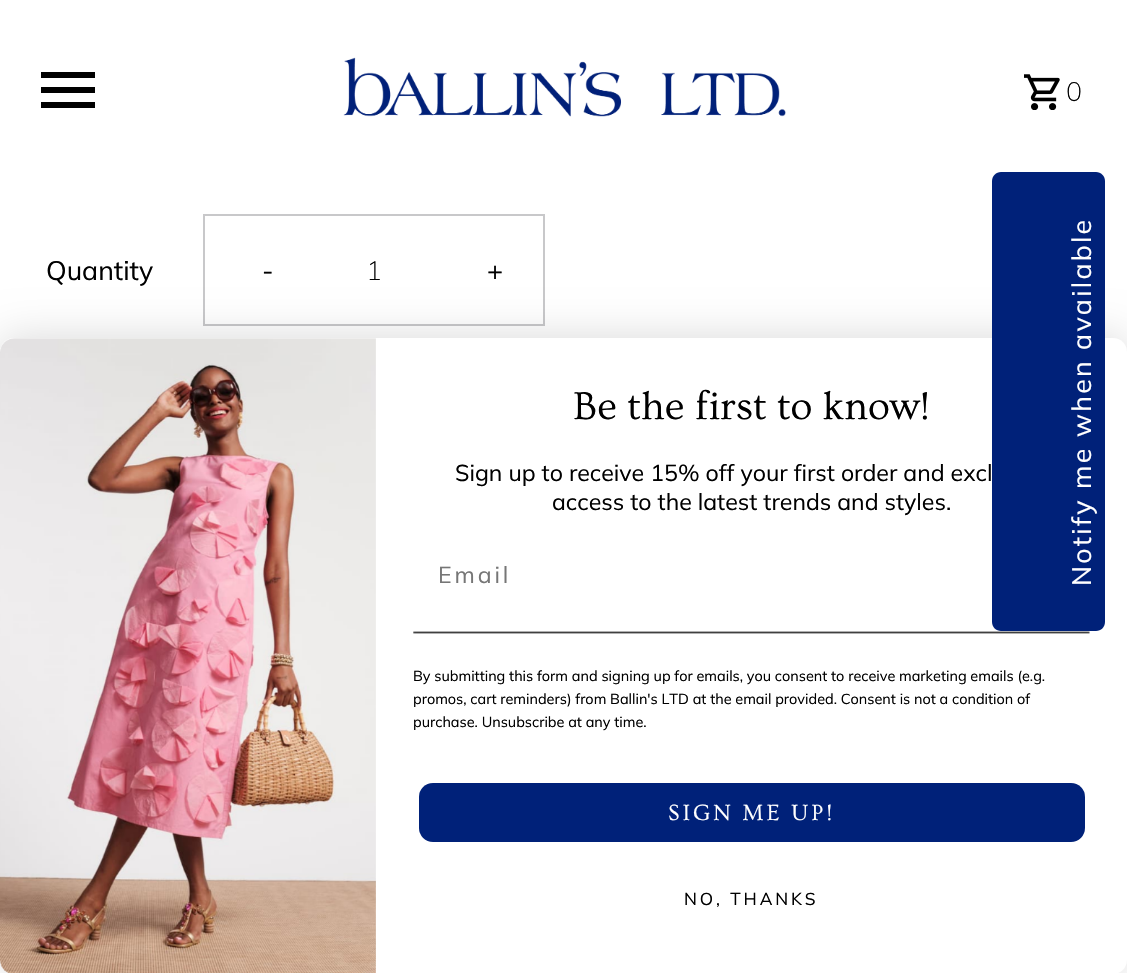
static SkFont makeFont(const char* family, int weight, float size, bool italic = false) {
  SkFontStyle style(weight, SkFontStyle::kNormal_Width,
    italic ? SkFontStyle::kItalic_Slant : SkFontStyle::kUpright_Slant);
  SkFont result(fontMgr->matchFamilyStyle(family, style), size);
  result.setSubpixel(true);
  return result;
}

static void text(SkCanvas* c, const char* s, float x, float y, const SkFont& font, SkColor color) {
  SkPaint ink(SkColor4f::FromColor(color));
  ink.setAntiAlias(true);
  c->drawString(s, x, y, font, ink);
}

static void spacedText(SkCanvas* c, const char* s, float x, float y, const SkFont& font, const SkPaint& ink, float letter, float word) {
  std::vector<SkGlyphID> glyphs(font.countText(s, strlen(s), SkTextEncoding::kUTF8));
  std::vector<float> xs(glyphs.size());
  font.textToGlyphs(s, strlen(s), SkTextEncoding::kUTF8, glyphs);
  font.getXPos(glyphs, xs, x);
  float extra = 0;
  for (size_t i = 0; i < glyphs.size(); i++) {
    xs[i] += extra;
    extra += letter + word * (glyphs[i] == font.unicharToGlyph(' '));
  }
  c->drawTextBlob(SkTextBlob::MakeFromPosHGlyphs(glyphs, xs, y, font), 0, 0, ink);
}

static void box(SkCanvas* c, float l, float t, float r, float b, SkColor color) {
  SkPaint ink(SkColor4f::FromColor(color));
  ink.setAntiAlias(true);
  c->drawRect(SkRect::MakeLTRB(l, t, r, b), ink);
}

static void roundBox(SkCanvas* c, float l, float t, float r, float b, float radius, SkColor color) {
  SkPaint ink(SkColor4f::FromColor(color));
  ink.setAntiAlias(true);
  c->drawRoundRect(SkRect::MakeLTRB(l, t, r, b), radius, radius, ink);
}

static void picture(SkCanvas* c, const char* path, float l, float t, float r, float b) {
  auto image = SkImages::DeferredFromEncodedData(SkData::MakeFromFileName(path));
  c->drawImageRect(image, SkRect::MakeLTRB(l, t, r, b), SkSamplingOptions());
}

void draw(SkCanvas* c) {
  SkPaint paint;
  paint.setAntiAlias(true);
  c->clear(0xffffffff);
  box(c, 41, 102, 95, 108, 0xff000000);
  box(c, 41, 87, 95, 93, 0xff000000);
  box(c, 41, 72, 95, 78, 0xff000000);
  picture(c, "img_01.png", 343, 57, 786, 117);
  picture(c, "img_02.png", 1024, 74, 1060, 110);
  SkFont face1 = makeFont("Muli", 200, 26.75f);
  text(c, "0", 1066, 101, face1, 0xff000000);
  SkFont face2 = makeFont("Muli", 400, 26.75f);
  text(c, "Quantity", 46, 280, face2, 0xff000000);
  paint.setStyle(SkPaint::kStroke_Style);
  paint.setStrokeWidth(2);
  paint.setColor(0xffc8c8ca);
  c->drawRect(SkRect::MakeLTRB(204, 215, 544, 325), paint);
  paint.setStyle(SkPaint::kFill_Style);
  paint.setColor(0xff000000);
  spacedText(c, "-", 262, 280, face2, paint, 2.25f, 0);
  text(c, "1", 366, 280, face1, 0xff000000);
  spacedText(c, "+", 487, 280, face2, paint, 2.25f, 0);
  paint.setColor(0x26000000);
  paint.setMaskFilter(SkMaskFilter::MakeBlur(kNormal_SkBlurStyle, 21.5f));
  c->drawRoundRect(SkRect::MakeLTRB(0, 338, 1127, 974), 14, 14, paint);
  paint.setMaskFilter(nullptr);
  roundBox(c, 0, 338, 1127, 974, 14, 0xffffffff);
  picture(c, "img_03.png", 0, 338, 376, 973);
  SkFont face3 = makeFont("Ovo", 400, 40.5f);
  text(c, "Be the first to know!", 573, 419, face3, 0xff000000);
  SkFont face4 = makeFont("Mulish", 200, 23.1f);
  text(c, "Sign up to receive 15% off your first order and excl", 455, 481, face4, 0xff000000);
  text(c, "access to the latest trends and styles.", 552, 510, face4, 0xff000000);
  paint.setColor(0xff767676);
  spacedText(c, "Email", 438, 583, face4, paint, 2.9f, 0);
  picture(c, "img_04.png", 413, 631, 1090, 634);
  SkFont face5 = makeFont("Mulish", 200, 14.45f);
  text(c, "By submitting this form and signing up for emails, you consent to receive marketing emails (e.g.", 413, 681, face5, 0xff000000);
  text(c, "promos, cart reminders) from Ballin's LTD at the email provided. Consent is not a condition of", 413, 704, face5, 0xff000000);
  text(c, "purchase. Unsubscribe at any time.", 413, 727, face5, 0xff000000);
  roundBox(c, 419, 783, 1085, 842, 14, 0xff002179);
  SkFont face6 = makeFont("Ovo", 400, 23.1f);
  paint.setColor(0xffffffff);
  spacedText(c, "SIGN ME UP!", 668, 820, face6, paint, 2.9f, 0);
  SkFont face7 = makeFont("Mulish", 200, 17.25f);
  paint.setColor(0xff000000);
  spacedText(c, "NO, THANKS", 684, 905, face7, paint, 2.9f, 0);
  paint.setColor(0xff002179);
  c->drawPath(SkPathBuilder().moveTo(992, 622).lineTo(992, 181).cubicTo(992, 176, 996, 172, 1001, 172).lineTo(1096, 172).cubicTo(1101, 172, 1105, 176, 1105, 181).lineTo(1105, 622).cubicTo(1105, 627, 1101, 631, 1096, 631).lineTo(1001, 631).cubicTo(996, 631, 992, 627, 992, 622).close().detach(), paint);
  paint.setColor(0xffffffff);
  c->save();
  c->rotate(-90, 1091, 586);
  spacedText(c, "Notify me when available", 1091, 586, face2, paint, 2.25f, 0);
  c->restore();
}
